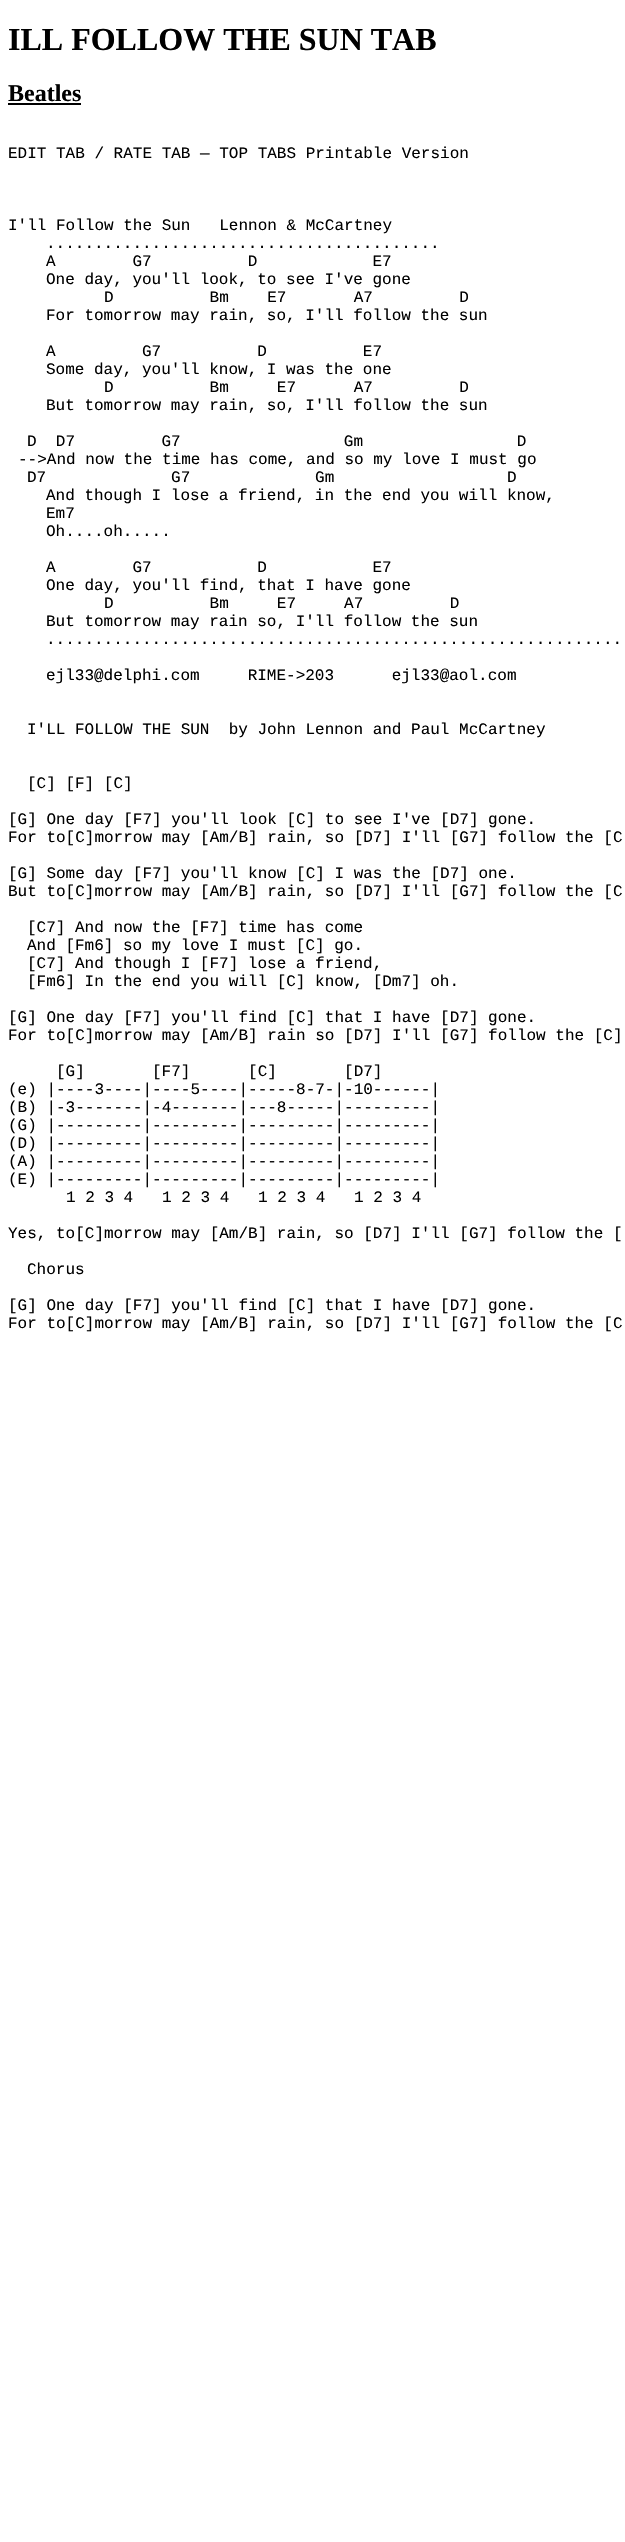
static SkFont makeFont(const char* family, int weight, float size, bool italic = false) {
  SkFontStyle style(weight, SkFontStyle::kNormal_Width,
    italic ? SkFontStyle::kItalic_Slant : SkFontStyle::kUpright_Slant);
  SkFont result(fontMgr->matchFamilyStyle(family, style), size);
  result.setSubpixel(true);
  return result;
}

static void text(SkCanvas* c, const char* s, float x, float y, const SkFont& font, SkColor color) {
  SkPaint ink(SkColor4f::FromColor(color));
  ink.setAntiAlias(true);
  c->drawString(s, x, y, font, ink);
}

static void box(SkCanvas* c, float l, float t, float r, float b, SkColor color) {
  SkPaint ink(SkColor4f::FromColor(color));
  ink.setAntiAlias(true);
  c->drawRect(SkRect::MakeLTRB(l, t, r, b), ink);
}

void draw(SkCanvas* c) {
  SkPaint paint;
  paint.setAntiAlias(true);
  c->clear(0xffffffff);
  SkFont face1 = makeFont("Liberation Serif", 700, 32);
  text(c, "ILL FOLLOW THE SUN TAB", 8, 50, face1, 0xff000000);
  SkFont face2 = makeFont("Liberation Serif", 700, 24);
  text(c, "Beatles", 8, 101, face2, 0xff000000);
  box(c, 8, 103, 81, 105, 0xff000000);
  SkFont face3 = makeFont("Liberation Mono", 400, 16);
  text(c, "EDIT TAB / RATE TAB — TOP TABS Printable Version", 8, 158, face3, 0xff000000);
  text(c, "I'll Follow the Sun   Lennon & McCartney", 8, 230, face3, 0xff000000);
  text(c, ".........................................", 46, 248, face3, 0xff000000);
  text(c, "A        G7          D            E7", 46, 266, face3, 0xff000000);
  text(c, "One day, you'll look, to see I've gone", 46, 284, face3, 0xff000000);
  text(c, "D          Bm    E7       A7         D", 104, 302, face3, 0xff000000);
  text(c, "For tomorrow may rain, so, I'll follow the sun", 46, 320, face3, 0xff000000);
  text(c, "A         G7          D          E7", 46, 356, face3, 0xff000000);
  text(c, "Some day, you'll know, I was the one", 46, 374, face3, 0xff000000);
  text(c, "D          Bm     E7      A7         D", 104, 392, face3, 0xff000000);
  text(c, "But tomorrow may rain, so, I'll follow the sun", 46, 410, face3, 0xff000000);
  text(c, "D  D7         G7                 Gm                D", 27, 446, face3, 0xff000000);
  text(c, "-->And now the time has come, and so my love I must go", 18, 464, face3, 0xff000000);
  text(c, "D7             G7             Gm                  D", 27, 482, face3, 0xff000000);
  text(c, "And though I lose a friend, in the end you will know,", 46, 500, face3, 0xff000000);
  text(c, "Em7", 46, 518, face3, 0xff000000);
  text(c, "Oh....oh.....", 46, 536, face3, 0xff000000);
  text(c, "A        G7           D           E7", 46, 572, face3, 0xff000000);
  text(c, "One day, you'll find, that I have gone", 46, 590, face3, 0xff000000);
  text(c, "D          Bm     E7     A7         D", 104, 608, face3, 0xff000000);
  text(c, "But tomorrow may rain so, I'll follow the sun", 46, 626, face3, 0xff000000);
  text(c, "............................................................", 46, 644, face3, 0xff000000);
  text(c, "ejl33@delphi.com     RIME->203      ejl33@aol.com", 46, 680, face3, 0xff000000);
  text(c, "I'LL FOLLOW THE SUN  by John Lennon and Paul McCartney", 27, 734, face3, 0xff000000);
  text(c, "[C] [F] [C]", 27, 788, face3, 0xff000000);
  text(c, "[G] One day [F7] you'll look [C] to see I've [D7] gone.", 8, 824, face3, 0xff000000);
  text(c, "For to[C]morrow may [Am/B] rain, so [D7] I'll [G7] follow the [C", 8, 842, face3, 0xff000000);
  text(c, "[G] Some day [F7] you'll know [C] I was the [D7] one.", 8, 878, face3, 0xff000000);
  text(c, "But to[C]morrow may [Am/B] rain, so [D7] I'll [G7] follow the [C", 8, 896, face3, 0xff000000);
  text(c, "[C7] And now the [F7] time has come", 27, 932, face3, 0xff000000);
  text(c, "And [Fm6] so my love I must [C] go.", 27, 950, face3, 0xff000000);
  text(c, "[C7] And though I [F7] lose a friend,", 27, 968, face3, 0xff000000);
  text(c, "[Fm6] In the end you will [C] know, [Dm7] oh.", 27, 986, face3, 0xff000000);
  text(c, "[G] One day [F7] you'll find [C] that I have [D7] gone.", 8, 1022, face3, 0xff000000);
  text(c, "For to[C]morrow may [Am/B] rain so [D7] I'll [G7] follow the [C]", 8, 1040, face3, 0xff000000);
  text(c, "[G]       [F7]      [C]       [D7]", 56, 1076, face3, 0xff000000);
  text(c, "(e) |----3----|----5----|-----8-7-|-10------|", 8, 1094, face3, 0xff000000);
  text(c, "(B) |-3-------|-4-------|---8-----|---------|", 8, 1112, face3, 0xff000000);
  text(c, "(G) |---------|---------|---------|---------|", 8, 1130, face3, 0xff000000);
  text(c, "(D) |---------|---------|---------|---------|", 8, 1148, face3, 0xff000000);
  text(c, "(A) |---------|---------|---------|---------|", 8, 1166, face3, 0xff000000);
  text(c, "(E) |---------|---------|---------|---------|", 8, 1184, face3, 0xff000000);
  text(c, "1 2 3 4   1 2 3 4   1 2 3 4   1 2 3 4", 66, 1202, face3, 0xff000000);
  text(c, "Yes, to[C]morrow may [Am/B] rain, so [D7] I'll [G7] follow the [", 8, 1238, face3, 0xff000000);
  text(c, "Chorus", 27, 1274, face3, 0xff000000);
  text(c, "[G] One day [F7] you'll find [C] that I have [D7] gone.", 8, 1310, face3, 0xff000000);
  text(c, "For to[C]morrow may [Am/B] rain, so [D7] I'll [G7] follow the [C", 8, 1328, face3, 0xff000000);
}
